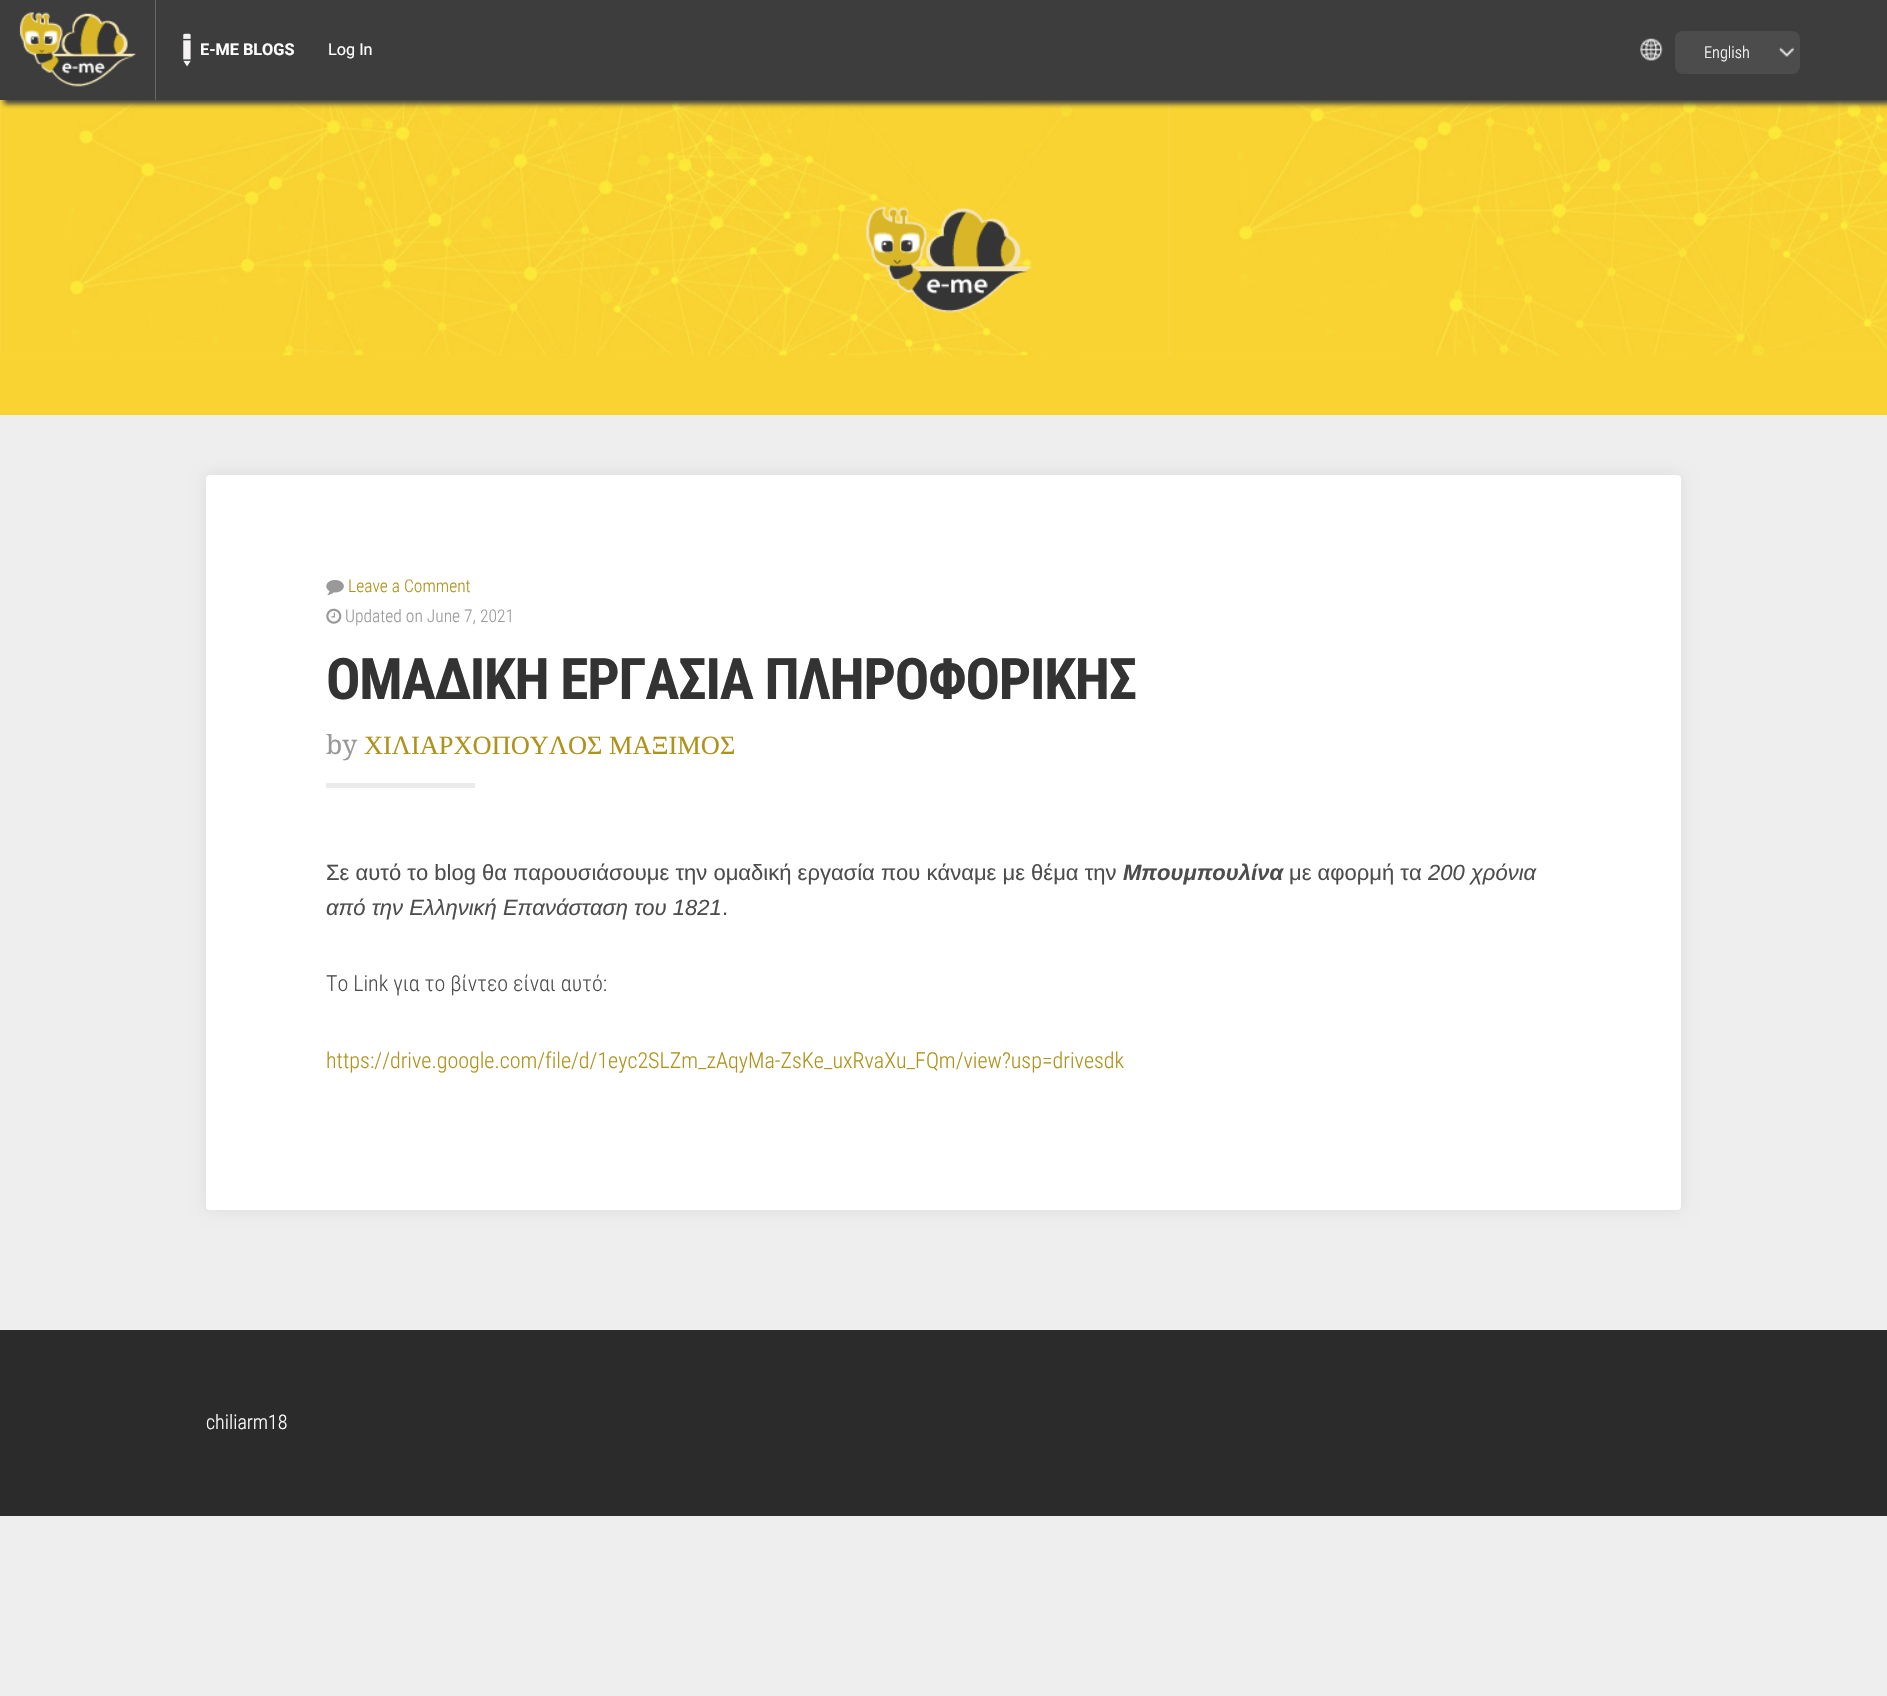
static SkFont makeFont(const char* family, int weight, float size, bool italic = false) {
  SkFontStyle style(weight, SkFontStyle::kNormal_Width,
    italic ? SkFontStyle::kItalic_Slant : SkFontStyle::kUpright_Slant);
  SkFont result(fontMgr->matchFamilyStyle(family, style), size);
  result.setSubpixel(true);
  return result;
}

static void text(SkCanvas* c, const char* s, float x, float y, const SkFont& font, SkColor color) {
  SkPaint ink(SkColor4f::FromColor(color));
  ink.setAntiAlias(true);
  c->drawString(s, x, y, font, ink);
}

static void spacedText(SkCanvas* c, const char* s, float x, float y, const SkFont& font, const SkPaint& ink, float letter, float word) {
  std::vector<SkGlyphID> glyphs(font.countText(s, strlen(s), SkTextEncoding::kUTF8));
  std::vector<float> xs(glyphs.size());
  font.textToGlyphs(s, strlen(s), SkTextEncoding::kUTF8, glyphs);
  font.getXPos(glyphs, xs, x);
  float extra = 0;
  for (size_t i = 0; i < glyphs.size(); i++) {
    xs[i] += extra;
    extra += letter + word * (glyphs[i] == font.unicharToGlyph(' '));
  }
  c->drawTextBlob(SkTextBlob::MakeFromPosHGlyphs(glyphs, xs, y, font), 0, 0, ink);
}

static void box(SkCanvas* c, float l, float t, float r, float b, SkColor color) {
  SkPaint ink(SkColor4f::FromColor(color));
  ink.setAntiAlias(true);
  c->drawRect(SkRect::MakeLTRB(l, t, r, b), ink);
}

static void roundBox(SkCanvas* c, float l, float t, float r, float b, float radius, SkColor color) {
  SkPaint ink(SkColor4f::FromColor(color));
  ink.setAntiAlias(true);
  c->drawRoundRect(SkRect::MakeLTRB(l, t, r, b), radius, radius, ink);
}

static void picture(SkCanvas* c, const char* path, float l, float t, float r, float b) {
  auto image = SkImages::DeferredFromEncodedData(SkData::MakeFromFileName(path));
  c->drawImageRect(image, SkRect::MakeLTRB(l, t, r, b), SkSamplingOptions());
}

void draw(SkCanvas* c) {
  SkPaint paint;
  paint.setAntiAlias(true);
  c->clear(0xffeeeeee);
  box(c, 0, 354, 1887, 415, 0xfff9d332);
  picture(c, "img_05.png", 0, 100, 1887, 356);
  paint.setColor(0xff444444);
  paint.setMaskFilter(SkMaskFilter::MakeBlur(kNormal_SkBlurStyle, 2.5f));
  c->drawRect(SkRect::MakeLTRB(4, 4, 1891, 104), paint);
  paint.setMaskFilter(nullptr);
  box(c, 0, 0, 1887, 100, 0xff3d3d3d);
  picture(c, "img_01.png", 19, 12, 137, 87);
  box(c, 155, 0, 156, 100, 0xff686868);
  picture(c, "img_02.png", 183, 33, 191, 67);
  SkFont face1 = makeFont("Roboto", 700, 16.25f);
  text(c, "E-ME BLOGS", 200, 55, face1, 0xffffffff);
  SkFont face2 = makeFont("Roboto", 400, 16.25f);
  text(c, "Log In", 328, 55, face2, 0xffffffff);
  picture(c, "img_03.png", 1640, 38, 1663, 61);
  roundBox(c, 1675, 31, 1800, 74, 8, 0xff4c4c4c);
  SkFont face3 = makeFont("Roboto Condensed", 300, 16.25f);
  text(c, "English", 1704, 58, face3, 0xffffffff);
  picture(c, "img_04.png", 1778, 47, 1794, 57);
  picture(c, "img_06.png", 866, 206, 1033, 313);
  paint.setColor(0x14000000);
  paint.setMaskFilter(SkMaskFilter::MakeBlur(kNormal_SkBlurStyle, 7.5f));
  c->drawRoundRect(SkRect::MakeLTRB(206, 475, 1681, 1210), 4, 4, paint);
  paint.setMaskFilter(nullptr);
  roundBox(c, 206, 475, 1681, 1210, 4, 0xffffffff);
  picture(c, "img_07.png", 326, 580, 344, 595);
  SkFont face4 = makeFont("Roboto Condensed", 300, 17.5f);
  text(c, "Leave a Comment", 348, 592, face4, 0xffaf9219);
  picture(c, "img_08.png", 326, 608, 342, 624);
  text(c, "Updated on June 7, 2021", 345, 622, face4, 0xff999999);
  SkFont face5 = makeFont("Roboto Condensed", 700, 57.25f);
  paint.setColor(0xff333333);
  spacedText(c, "ΟΜΑΔΙΚΗ ΕΡΓΑΣΙΑ ΠΛΗΡΟΦΟΡΙΚΗΣ", 326, 699, face5, paint, -1.25f, 0);
  SkFont face6 = makeFont("Droid Serif", 400, 26.4f);
  text(c, "by", 326, 754, face6, 0xff999999);
  SkFont face7 = makeFont("Liberation Serif", 400, 26.4f);
  text(c, "ΧΙΛΙΑΡΧΟΠΟΥΛΟΣ ΜΑΞΙΜΟΣ", 364, 754, face7, 0xffaf9219);
  box(c, 326, 783, 475, 788, 0xffebebeb);
  SkFont face8 = makeFont("Liberation Sans", 400, 22);
  text(c, "Σε αυτό το blog θα παρουσιάσουμε την ομαδική εργασία που κάναμε με θέμα την", 326, 880, face8, 0xff4d4d4d);
  SkFont face9 = makeFont("Liberation Sans", 700, 22, true);
  text(c, "Μπουμπουλίνα", 1123, 880, face9, 0xff4d4d4d);
  text(c, "με αφορμή τα", 1289, 880, face8, 0xff4d4d4d);
  SkFont face10 = makeFont("Liberation Sans", 400, 22, true);
  text(c, "200 χρόνια", 1428, 880, face10, 0xff4d4d4d);
  text(c, "από την Ελληνική Επανάσταση του 1821", 326, 915, face10, 0xff4d4d4d);
  text(c, ".", 722, 915, face8, 0xff4d4d4d);
  SkFont face11 = makeFont("Roboto Condensed", 300, 22);
  text(c, "Το Link για το βίντεο είναι αυτό:", 326, 991, face11, 0xff4d4d4d);
  text(c, "https://drive.google.com/file/d/1eyc2SLZm_zAqyMa-ZsKe_uxRvaXu_FQm/view?usp=drivesdk", 326, 1068, face11, 0xffaf9219);
  box(c, 0, 1330, 1887, 1516, 0xff2b2b2b);
  SkFont face12 = makeFont("Roboto Condensed", 300, 20);
  text(c, "chiliarm18", 206, 1429, face12, 0xffffffff);
}
